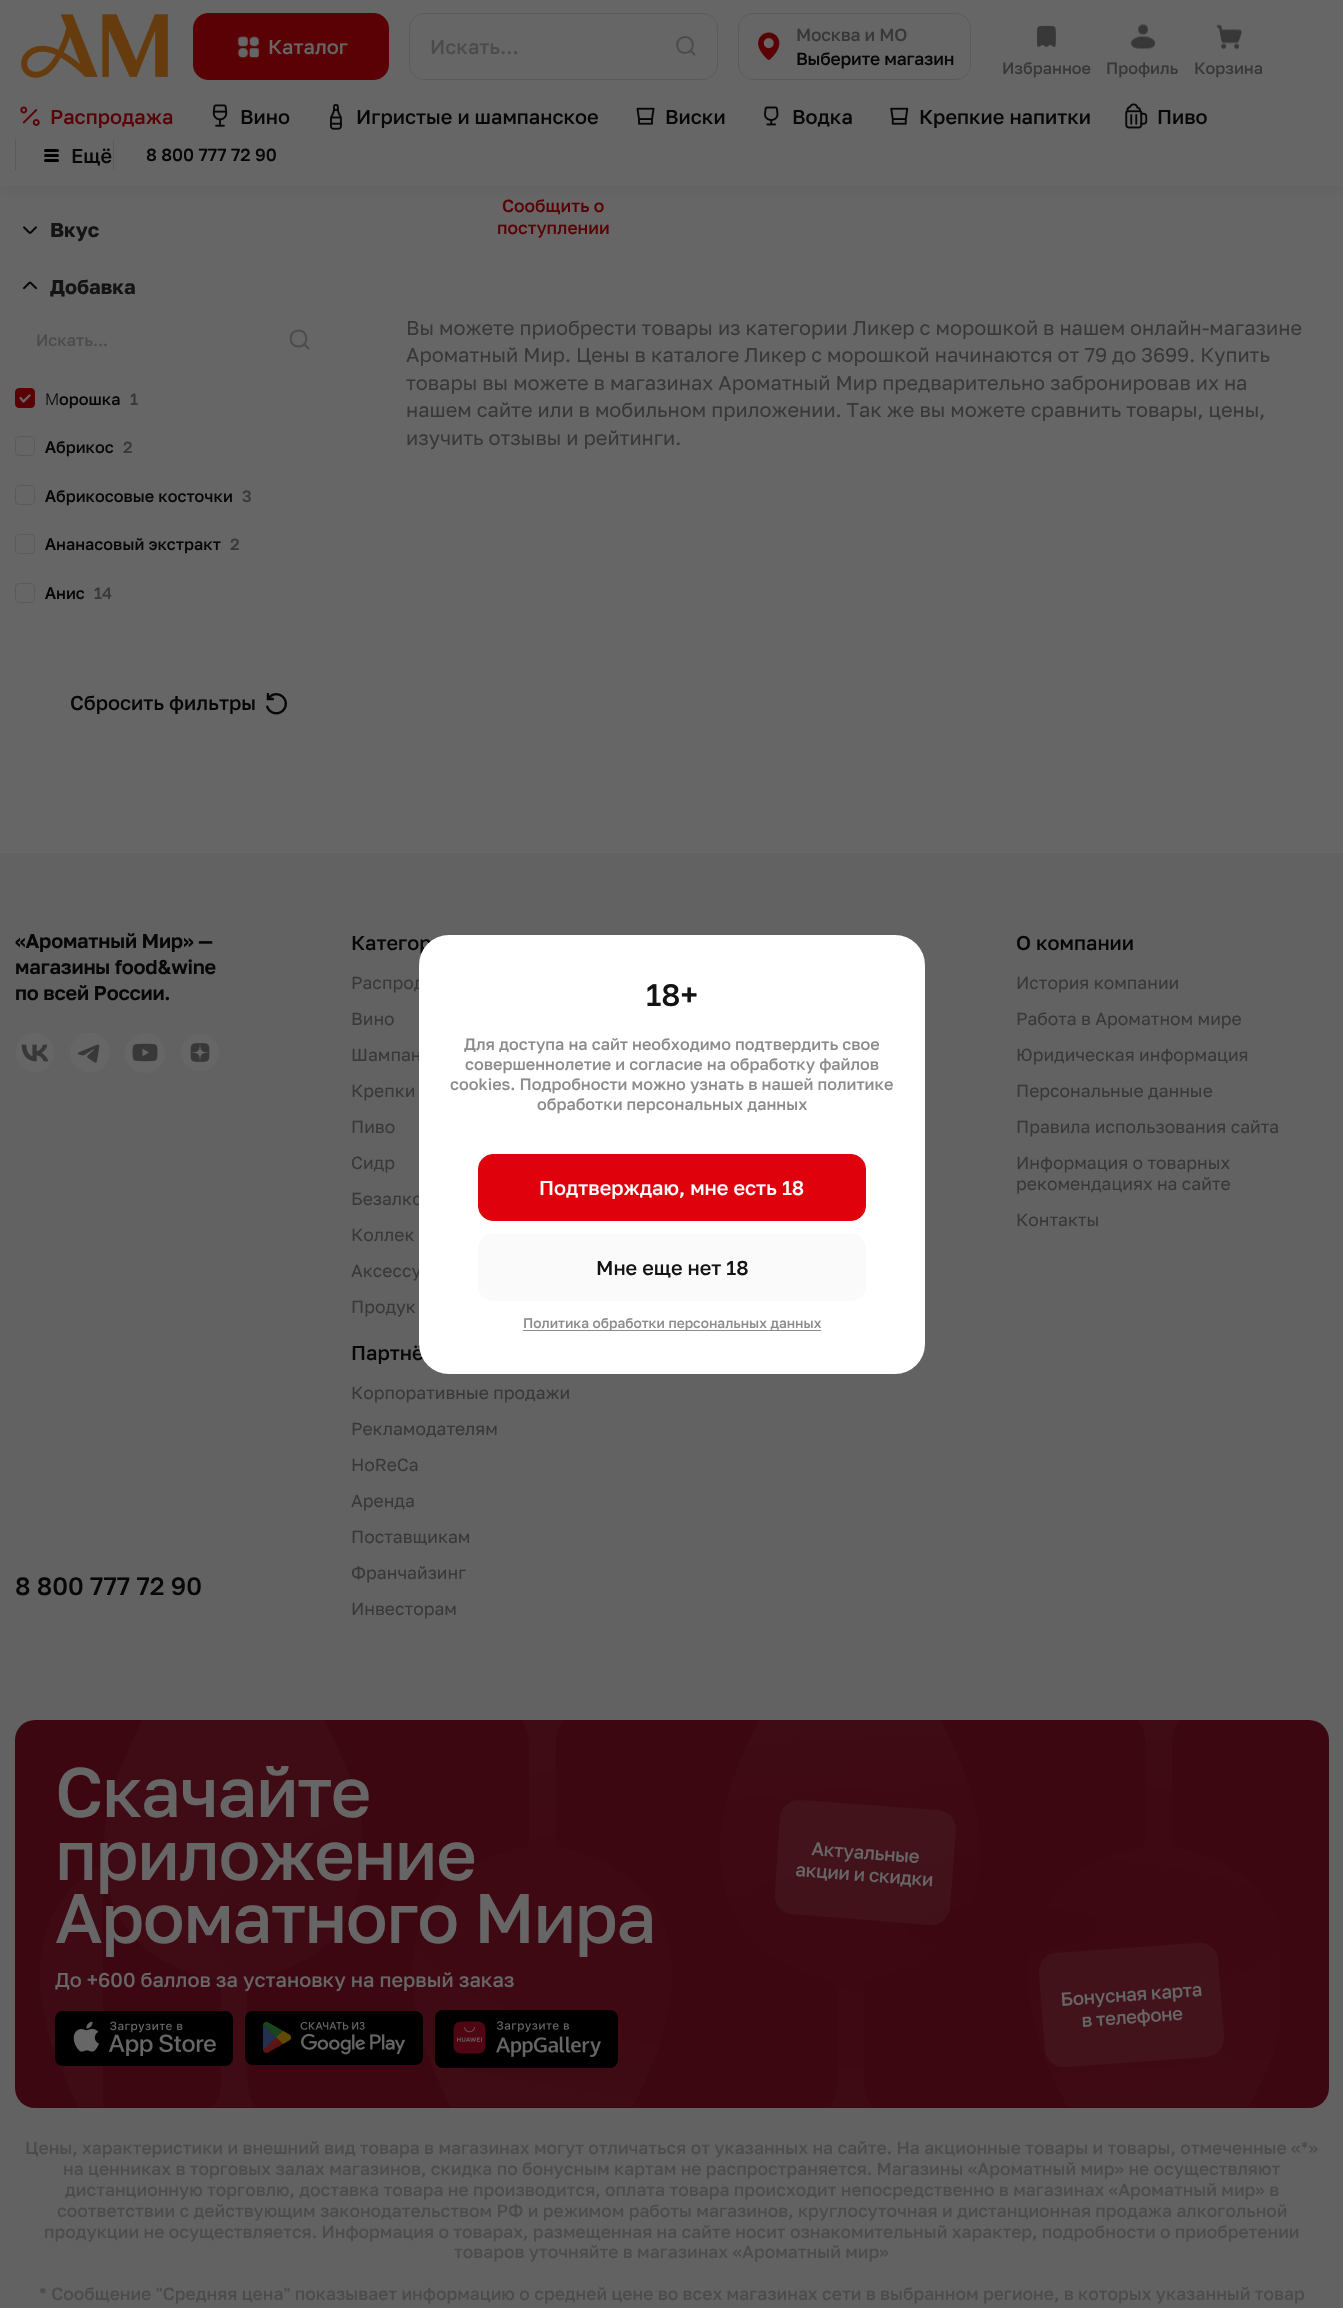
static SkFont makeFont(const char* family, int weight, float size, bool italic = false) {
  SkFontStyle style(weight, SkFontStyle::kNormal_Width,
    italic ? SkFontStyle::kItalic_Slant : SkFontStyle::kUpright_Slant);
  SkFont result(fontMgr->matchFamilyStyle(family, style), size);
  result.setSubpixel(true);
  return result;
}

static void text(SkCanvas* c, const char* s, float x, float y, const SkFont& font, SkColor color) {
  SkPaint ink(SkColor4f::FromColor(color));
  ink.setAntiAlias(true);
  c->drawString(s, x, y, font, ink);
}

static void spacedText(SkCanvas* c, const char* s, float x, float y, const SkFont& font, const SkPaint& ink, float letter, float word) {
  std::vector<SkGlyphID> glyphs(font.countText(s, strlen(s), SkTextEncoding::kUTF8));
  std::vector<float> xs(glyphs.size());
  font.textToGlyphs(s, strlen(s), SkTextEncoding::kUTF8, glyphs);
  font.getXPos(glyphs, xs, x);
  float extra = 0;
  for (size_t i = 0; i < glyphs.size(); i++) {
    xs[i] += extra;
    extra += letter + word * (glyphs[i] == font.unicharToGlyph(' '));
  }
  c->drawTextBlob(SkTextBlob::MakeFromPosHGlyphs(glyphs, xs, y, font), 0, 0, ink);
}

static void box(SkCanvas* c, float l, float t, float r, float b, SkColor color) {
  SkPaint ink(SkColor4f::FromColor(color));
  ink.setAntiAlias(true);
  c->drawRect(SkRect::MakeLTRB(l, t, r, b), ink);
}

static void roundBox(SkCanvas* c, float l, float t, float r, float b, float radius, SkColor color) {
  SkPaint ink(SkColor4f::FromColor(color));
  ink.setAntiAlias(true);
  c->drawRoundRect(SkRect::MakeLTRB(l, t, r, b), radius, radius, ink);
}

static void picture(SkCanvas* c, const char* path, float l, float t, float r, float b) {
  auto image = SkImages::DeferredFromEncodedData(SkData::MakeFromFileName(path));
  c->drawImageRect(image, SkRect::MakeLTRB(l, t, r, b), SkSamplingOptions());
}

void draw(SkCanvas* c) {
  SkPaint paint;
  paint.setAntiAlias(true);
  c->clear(0xff666666);
  paint.setColor(0x1f000000);
  paint.setMaskFilter(SkMaskFilter::MakeBlur(kNormal_SkBlurStyle, 9));
  c->drawRect(SkRect::MakeLTRB(0, -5, 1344, 181), paint);
  paint.setMaskFilter(nullptr);
  box(c, 0, 0, 1343, 186, 0xff666666);
  picture(c, "img_01.png", 21, 14, 168, 78);
  paint.setColor(0xff590105);
  c->drawRoundRect(SkRect::MakeLTRB(193.5f, 13.5f, 388.5f, 79.5f), 14.5f, 14.5f, paint);
  paint.setStyle(SkPaint::kStroke_Style);
  paint.setStrokeWidth(1);
  c->drawRoundRect(SkRect::MakeLTRB(193.5f, 13.5f, 388.5f, 79.5f), 14.5f, 14.5f, paint);
  picture(c, "img_02.png", 237, 36, 260, 58);
  SkFont face1 = makeFont("Golos Text", 500, 20);
  text(c, "Каталог", 268, 54, face1, 0xff666666);
  paint.setColor(0xff5a5a5a);
  c->drawRoundRect(SkRect::MakeLTRB(409.5f, 13.5f, 717.5f, 79.5f), 14.5f, 14.5f, paint);
  text(c, "Искать...", 430, 54, face1, 0xff4c4b4b);
  paint.setStrokeWidth(1.9f);
  paint.setStrokeJoin(SkPaint::kRound_Join);
  paint.setColor(0xff4c4b4b);
  c->drawPath(SkPathBuilder().moveTo(685, 53).cubicTo(695.5f, 53, 695.5f, 37, 685, 37).cubicTo(674.5f, 37, 674.5f, 53, 685, 53).close().detach(), paint);
  paint.setStrokeCap(SkPaint::kRound_Cap);
  c->drawPath(SkPathBuilder().moveTo(690.5f, 50.5f).lineTo(694.5f, 54.5f).detach(), paint);
  paint.setStrokeWidth(1);
  paint.setStrokeCap(SkPaint::kButt_Cap);
  paint.setStrokeJoin(SkPaint::kMiter_Join);
  paint.setColor(0xff5a5a5a);
  c->drawRoundRect(SkRect::MakeLTRB(738.5f, 13.5f, 970.5f, 79.5f), 14.5f, 14.5f, paint);
  picture(c, "img_03.png", 758, 32, 780, 60);
  SkFont face2 = makeFont("Golos Text", 500, 17.5f);
  paint.setStyle(SkPaint::kFill_Style);
  paint.setColor(0xff383838);
  spacedText(c, "Москва и МО", 796, 41, face2, paint, -0.2f, 0);
  paint.setColor(0xff070707);
  spacedText(c, "Выберите магазин", 796, 65, face2, paint, -0.2f, 0);
  picture(c, "img_04.png", 1036, 25, 1056, 47);
  SkFont face3 = makeFont("Golos Text", 500, 16.25f);
  text(c, "Избранное", 1002, 74, face3, 0xff383838);
  picture(c, "img_05.png", 1131, 24, 1155, 49);
  text(c, "Профиль", 1106, 74, face3, 0xff383838);
  picture(c, "img_06.png", 1217, 24, 1242, 50);
  text(c, "Корзина", 1194, 74, face3, 0xff383838);
  picture(c, "img_07.png", 20, 106, 40, 126);
  text(c, "Распродажа", 50, 124, face1, 0xff590105);
  picture(c, "img_08.png", 212, 104, 228, 127);
  text(c, "Вино", 240, 124, face1, 0xff070707);
  picture(c, "img_09.png", 330, 104, 342, 130);
  text(c, "Игристые и шампанское", 356, 124, face1, 0xff070707);
  picture(c, "img_10.png", 636, 107, 655, 125);
  text(c, "Виски", 665, 124, face1, 0xff070707);
  picture(c, "img_11.png", 764, 106, 779, 126);
  text(c, "Водка", 792, 124, face1, 0xff070707);
  picture(c, "img_12.png", 890, 107, 909, 125);
  text(c, "Крепкие напитки", 919, 124, face1, 0xff070707);
  picture(c, "img_13.png", 1125, 103, 1148, 129);
  text(c, "Пиво", 1157, 124, face1, 0xff070707);
  box(c, 15, 140, 16, 170, 0xff5a5a5a);
  roundBox(c, 44, 149, 59, 152, 1.5f, 0xff000000);
  roundBox(c, 44, 154, 59, 157, 1.5f, 0xff000000);
  roundBox(c, 44, 159, 59, 162, 1.5f, 0xff000000);
  text(c, "Ещё", 71, 163, face1, 0xff070707);
  box(c, 113, 140, 114, 170, 0xff5a5a5a);
  text(c, "8 800 777 72 90", 146, 161, face2, 0xff070707);
  picture(c, "img_14.png", 23, 226, 37, 234);
  SkFont face4 = makeFont("Golos Text", 700, 20);
  text(c, "Вкус", 50, 237, face4, 0xff141414);
  picture(c, "img_15.png", 23, 281, 37, 290);
  text(c, "Добавка", 50, 294, face4, 0xff141414);
  text(c, "Искать...", 36, 346, face3, 0xff4c4b4b);
  paint.setStyle(SkPaint::kStroke_Style);
  paint.setStrokeWidth(1.9f);
  paint.setStrokeJoin(SkPaint::kRound_Join);
  paint.setColor(0xff4c4b4b);
  c->drawPath(SkPathBuilder().moveTo(298.5f, 346.5f).cubicTo(309, 346.5f, 309, 330.5f, 298.5f, 330.5f).cubicTo(288, 330.5f, 288, 346.5f, 298.5f, 346.5f).close().detach(), paint);
  paint.setStrokeCap(SkPaint::kRound_Cap);
  c->drawPath(SkPathBuilder().moveTo(304.5f, 344.5f).lineTo(308.5f, 348.5f).detach(), paint);
  paint.setStyle(SkPaint::kFill_Style);
  paint.setColor(0xff590105);
  c->drawRoundRect(SkRect::MakeLTRB(15.5f, 388.5f, 34.5f, 407.5f), 3.5f, 3.5f, paint);
  paint.setStyle(SkPaint::kStroke_Style);
  paint.setStrokeWidth(1);
  paint.setStrokeCap(SkPaint::kButt_Cap);
  paint.setStrokeJoin(SkPaint::kMiter_Join);
  c->drawRoundRect(SkRect::MakeLTRB(15.5f, 388.5f, 34.5f, 407.5f), 3.5f, 3.5f, paint);
  paint.setStrokeWidth(2.3f);
  paint.setStrokeCap(SkPaint::kRound_Cap);
  paint.setStrokeJoin(SkPaint::kRound_Join);
  paint.setColor(0xff666666);
  c->drawPath(SkPathBuilder().moveTo(20.5f, 398).lineTo(23.5f, 401.5f).lineTo(29.5f, 395.5f).detach(), paint);
  SkFont face5 = makeFont("Noto Sans", 300, 16.25f);
  text(c, "М", 45, 405, face5, 0xff070707);
  text(c, "орошка", 59, 405, face3, 0xff070707);
  text(c, "1", 130, 405, face3, 0xff383838);
  paint.setStrokeWidth(1);
  paint.setStrokeCap(SkPaint::kButt_Cap);
  paint.setStrokeJoin(SkPaint::kMiter_Join);
  paint.setColor(0xff5a5a5a);
  c->drawRoundRect(SkRect::MakeLTRB(15.5f, 436.5f, 34.5f, 455.5f), 3.5f, 3.5f, paint);
  SkFont face6 = makeFont("Noto Sans", 600, 16.25f);
  text(c, "А", 45, 453, face6, 0xff070707);
  text(c, "брикос", 56, 453, face3, 0xff070707);
  text(c, "2", 123, 453, face3, 0xff383838);
  c->drawRoundRect(SkRect::MakeLTRB(15.5f, 485.5f, 34.5f, 504.5f), 3.5f, 3.5f, paint);
  text(c, "А", 45, 502, face6, 0xff070707);
  text(c, "брикосовые косточки", 56, 502, face3, 0xff070707);
  text(c, "3", 242, 502, face3, 0xff383838);
  c->drawRoundRect(SkRect::MakeLTRB(15.5f, 534.5f, 34.5f, 553.5f), 3.5f, 3.5f, paint);
  text(c, "А", 45, 550, face6, 0xff070707);
  text(c, "нанасовый экстракт", 56, 550, face3, 0xff070707);
  text(c, "2", 230, 550, face3, 0xff383838);
  c->drawRoundRect(SkRect::MakeLTRB(15.5f, 583.5f, 34.5f, 602.5f), 3.5f, 3.5f, paint);
  text(c, "А", 45, 599, face6, 0xff070707);
  text(c, "нис", 56, 599, face3, 0xff070707);
  text(c, "14", 94, 599, face3, 0xff383838);
  text(c, "Сбросить фильтры", 70, 710, face1, 0xff070707);
  picture(c, "img_16.png", 265, 693, 287, 715);
  text(c, "Сообщить о", 502, 212, face2, 0xff590105);
  text(c, "поступлении", 497, 234, face2, 0xff590105);
  SkFont face7 = makeFont("Golos Text", 400, 20);
  text(c, "Вы можете приобрести товары из категории Ликер с морошкой в нашем онлайн-магазине", 406, 335, face7, 0xff383838);
  text(c, "Ароматный Мир. Цены в каталоге Ликер с морошкой начинаются от 79 до 3699. Купить", 406, 362, face7, 0xff383838);
  text(c, "товары вы можете в магазинах Ароматный Мир предварительно забронировав их на", 406, 390, face7, 0xff383838);
  text(c, "нашем сайте или в мобильном приложении. Так же вы можете сравнить товары, цены,", 406, 417, face7, 0xff383838);
  text(c, "изучить отзывы и рейтинги.", 406, 445, face7, 0xff383838);
  box(c, 0, 853, 1343, 2308, 0xff636263);
  SkFont face8 = makeFont("Golos Text", 600, 20);
  paint.setStyle(SkPaint::kFill_Style);
  paint.setColor(0xff070707);
  spacedText(c, "«Ароматный Мир» —", 15, 948, face8, paint, -0.25f, 0);
  spacedText(c, "магазины food&wine", 15, 974, face8, paint, -0.25f, 0);
  spacedText(c, "по всей России.", 15, 1000, face8, paint, -0.25f, 0);
  picture(c, "img_17.png", 16, 1033, 54, 1072);
  picture(c, "img_18.png", 70, 1033, 110, 1073);
  picture(c, "img_19.png", 125, 1033, 165, 1073);
  picture(c, "img_20.png", 181, 1034, 219, 1071);
  SkFont face9 = makeFont("Golos Text", 500, 25);
  text(c, "8 800 777 72 90", 15, 1595, face9, 0xff070707);
  text(c, "Категор", 351, 950, face1, 0xff070707);
  SkFont face10 = makeFont("Golos Text", 400, 17.5f);
  text(c, "Распрод", 351, 989, face10, 0xff383838);
  text(c, "Вино", 351, 1025, face10, 0xff383838);
  text(c, "Шампан", 351, 1061, face10, 0xff383838);
  text(c, "Крепки", 351, 1097, face10, 0xff383838);
  text(c, "Пиво", 351, 1133, face10, 0xff383838);
  text(c, "Сидр", 351, 1169, face10, 0xff383838);
  text(c, "Безалко", 351, 1205, face10, 0xff383838);
  text(c, "Коллек", 351, 1241, face10, 0xff383838);
  text(c, "Аксессу", 351, 1277, face10, 0xff383838);
  text(c, "Продук", 351, 1313, face10, 0xff383838);
  text(c, "О компании", 1016, 950, face1, 0xff070707);
  text(c, "История компании", 1016, 989, face10, 0xff383838);
  text(c, "Работа в Ароматном мире", 1016, 1025, face10, 0xff383838);
  text(c, "Юридическая информация", 1016, 1061, face10, 0xff383838);
  text(c, "Персональные данные", 1016, 1097, face10, 0xff383838);
  text(c, "Правила использования сайта", 1016, 1133, face10, 0xff383838);
  text(c, "Информация о товарных", 1016, 1169, face10, 0xff383838);
  text(c, "рекомендациях на сайте", 1016, 1190, face10, 0xff383838);
  text(c, "Контакты", 1016, 1226, face10, 0xff383838);
  text(c, "Партнё", 351, 1360, face1, 0xff070707);
  text(c, "Корпоративные продажи", 351, 1399, face10, 0xff383838);
  text(c, "Рекламодателям", 351, 1435, face10, 0xff383838);
  text(c, "HoReCa", 351, 1471, face10, 0xff383838);
  text(c, "Аренда", 351, 1507, face10, 0xff383838);
  text(c, "Поставщикам", 351, 1543, face10, 0xff383838);
  text(c, "Франчайзинг", 351, 1579, face10, 0xff383838);
  text(c, "Инвесторам", 351, 1615, face10, 0xff383838);
  roundBox(c, 15, 1720, 1329, 2108, 20, 0xff3d0711);
  picture(c, "img_21.png", 40, 1720, 1280, 2107);
  SkFont face11 = makeFont("Golos Text", 500, 70);
  paint.setColor(0xff666666);
  spacedText(c, "Скачайте", 55, 1817, face11, paint, -1.4f, 0);
  spacedText(c, "приложение", 55, 1880, face11, paint, -1.4f, 0);
  spacedText(c, "Ароматного Мира", 55, 1943, face11, paint, -1.4f, 0);
  text(c, "До +600 баллов за установку на первый заказ", 55, 1987, face1, 0xff666666);
  roundBox(c, 55, 2011, 233, 2066, 8, 0xff000000);
  picture(c, "img_22.png", 73, 2021, 216, 2056);
  roundBox(c, 245, 2011, 423, 2065, 8, 0xff000000);
  picture(c, "img_23.png", 263, 2021, 406, 2055);
  roundBox(c, 435, 2010, 618, 2068, 8, 0xff000000);
  picture(c, "img_24.png", 453, 2021, 601, 2057);
  paint.setColor(0x1a666666);
  c->drawPath(SkPathBuilder().moveTo(800, 1800).lineTo(938, 1810).cubicTo(949, 1811, 956, 1820, 956, 1830).lineTo(950, 1907).cubicTo(949, 1918, 940, 1926, 930, 1925).lineTo(792, 1914).cubicTo(782, 1914, 774, 1905, 775, 1894).lineTo(780, 1817).cubicTo(781, 1807, 790, 1799, 800, 1800).close().detach(), paint);
  SkFont face12 = makeFont("Golos Text", 500, 18.75f);
  paint.setColor(0xff666666);
  c->save();
  c->rotate(4.3f, 811, 1855);
  spacedText(c, "Актуальные", 811, 1855, face12, paint, -0.4f, 0);
  c->restore();
  c->save();
  c->rotate(4.3f, 795, 1876);
  spacedText(c, "акции и скидки", 795, 1876, face12, paint, -0.4f, 0);
  c->restore();
  paint.setColor(0x1a666666);
  c->drawPath(SkPathBuilder().moveTo(1057, 1953).lineTo(1198, 1943).cubicTo(1209, 1942, 1218, 1950, 1218, 1960).lineTo(1224, 2037).cubicTo(1225, 2047, 1217, 2056, 1207, 2057).lineTo(1065, 2067).cubicTo(1055, 2068, 1046, 2060, 1045, 2050).lineTo(1039, 1973).cubicTo(1039, 1962, 1046, 1953, 1057, 1953).close().detach(), paint);
  paint.setColor(0xff666666);
  c->save();
  c->rotate(-4.1f, 1061, 2006);
  spacedText(c, "Бонусная карта", 1061, 2006, face12, paint, -0.4f, 0);
  c->restore();
  c->save();
  c->rotate(-4.1f, 1082, 2027);
  spacedText(c, "в телефоне", 1082, 2027, face12, paint, -0.4f, 0);
  c->restore();
  text(c, "Цены, характеристики и внешний вид товара в магазинах могут отличаться от указанных на сайте. На акционные товары и товары, отмеченные «*»", 25, 2154, face2, 0xff4c4b4b);
  text(c, "на ценниках в торговых залах магазинов, скидка по бонусным картам не распространяется. Магазины «Ароматный мир» не осуществляют", 63, 2175, face2, 0xff4c4b4b);
  text(c, "дистанционную торговлю, доставка товара не производится, оплата товара происходит непосредственно в магазинах «Ароматный мир» в", 65, 2196, face2, 0xff4c4b4b);
  text(c, "соответствии с действующим законодательством РФ и режимом работы магазинов, круглосуточная и дистанционная продажа алкогольной", 57, 2217, face2, 0xff4c4b4b);
  text(c, "продукции не осуществляется. Информация о товарах, размещенная на сайте носит ознакомительный характер, подробности о приобретении", 44, 2238, face2, 0xff4c4b4b);
  text(c, "товаров уточняйте в магазинах «Ароматный мир»", 454, 2258, face2, 0xff4c4b4b);
  text(c, "* Сообщение \"Средняя цена\" показывает информацию о средней цене во всех магазинах сети в выбранном регионе, в которых указанный товар", 39, 2300, face2, 0xff4c4b4b);
  roundBox(c, 419, 935, 925, 1374, 30, 0xffffffff);
  SkFont face13 = makeFont("Golos Text", 500, 31);
  text(c, "18+", 646, 1006, face13, 0xff141414);
  text(c, "Для доступа на сайт необходимо подтвердить свое", 464, 1050, face3, 0xff8b8b8b);
  text(c, "совершеннолетие и согласие на обработку файлов", 465, 1070, face3, 0xff8b8b8b);
  text(c, "cookies. Подробности можно узнать в нашей политике", 450, 1090, face3, 0xff8b8b8b);
  text(c, "обработки персональных данных", 537, 1110, face3, 0xff8b8b8b);
  paint.setColor(0xffdf020c);
  c->drawRoundRect(SkRect::MakeLTRB(478.5f, 1154.5f, 865.5f, 1220.5f), 14.5f, 14.5f, paint);
  paint.setStyle(SkPaint::kStroke_Style);
  c->drawRoundRect(SkRect::MakeLTRB(478.5f, 1154.5f, 865.5f, 1220.5f), 14.5f, 14.5f, paint);
  text(c, "Подтверждаю, мне есть 18", 539, 1195, face1, 0xffffffff);
  roundBox(c, 478, 1234, 866, 1301, 15, 0xfffafafa);
  text(c, "Мне еще нет 18", 596, 1275, face1, 0xff141414);
  box(c, 523, 1330, 821, 1331, 0xff8b8b8b);
  SkFont face14 = makeFont("Golos Text", 500, 13.75f);
  text(c, "Политика обработки персональных данных", 523, 1328, face14, 0xff8b8b8b);
}
